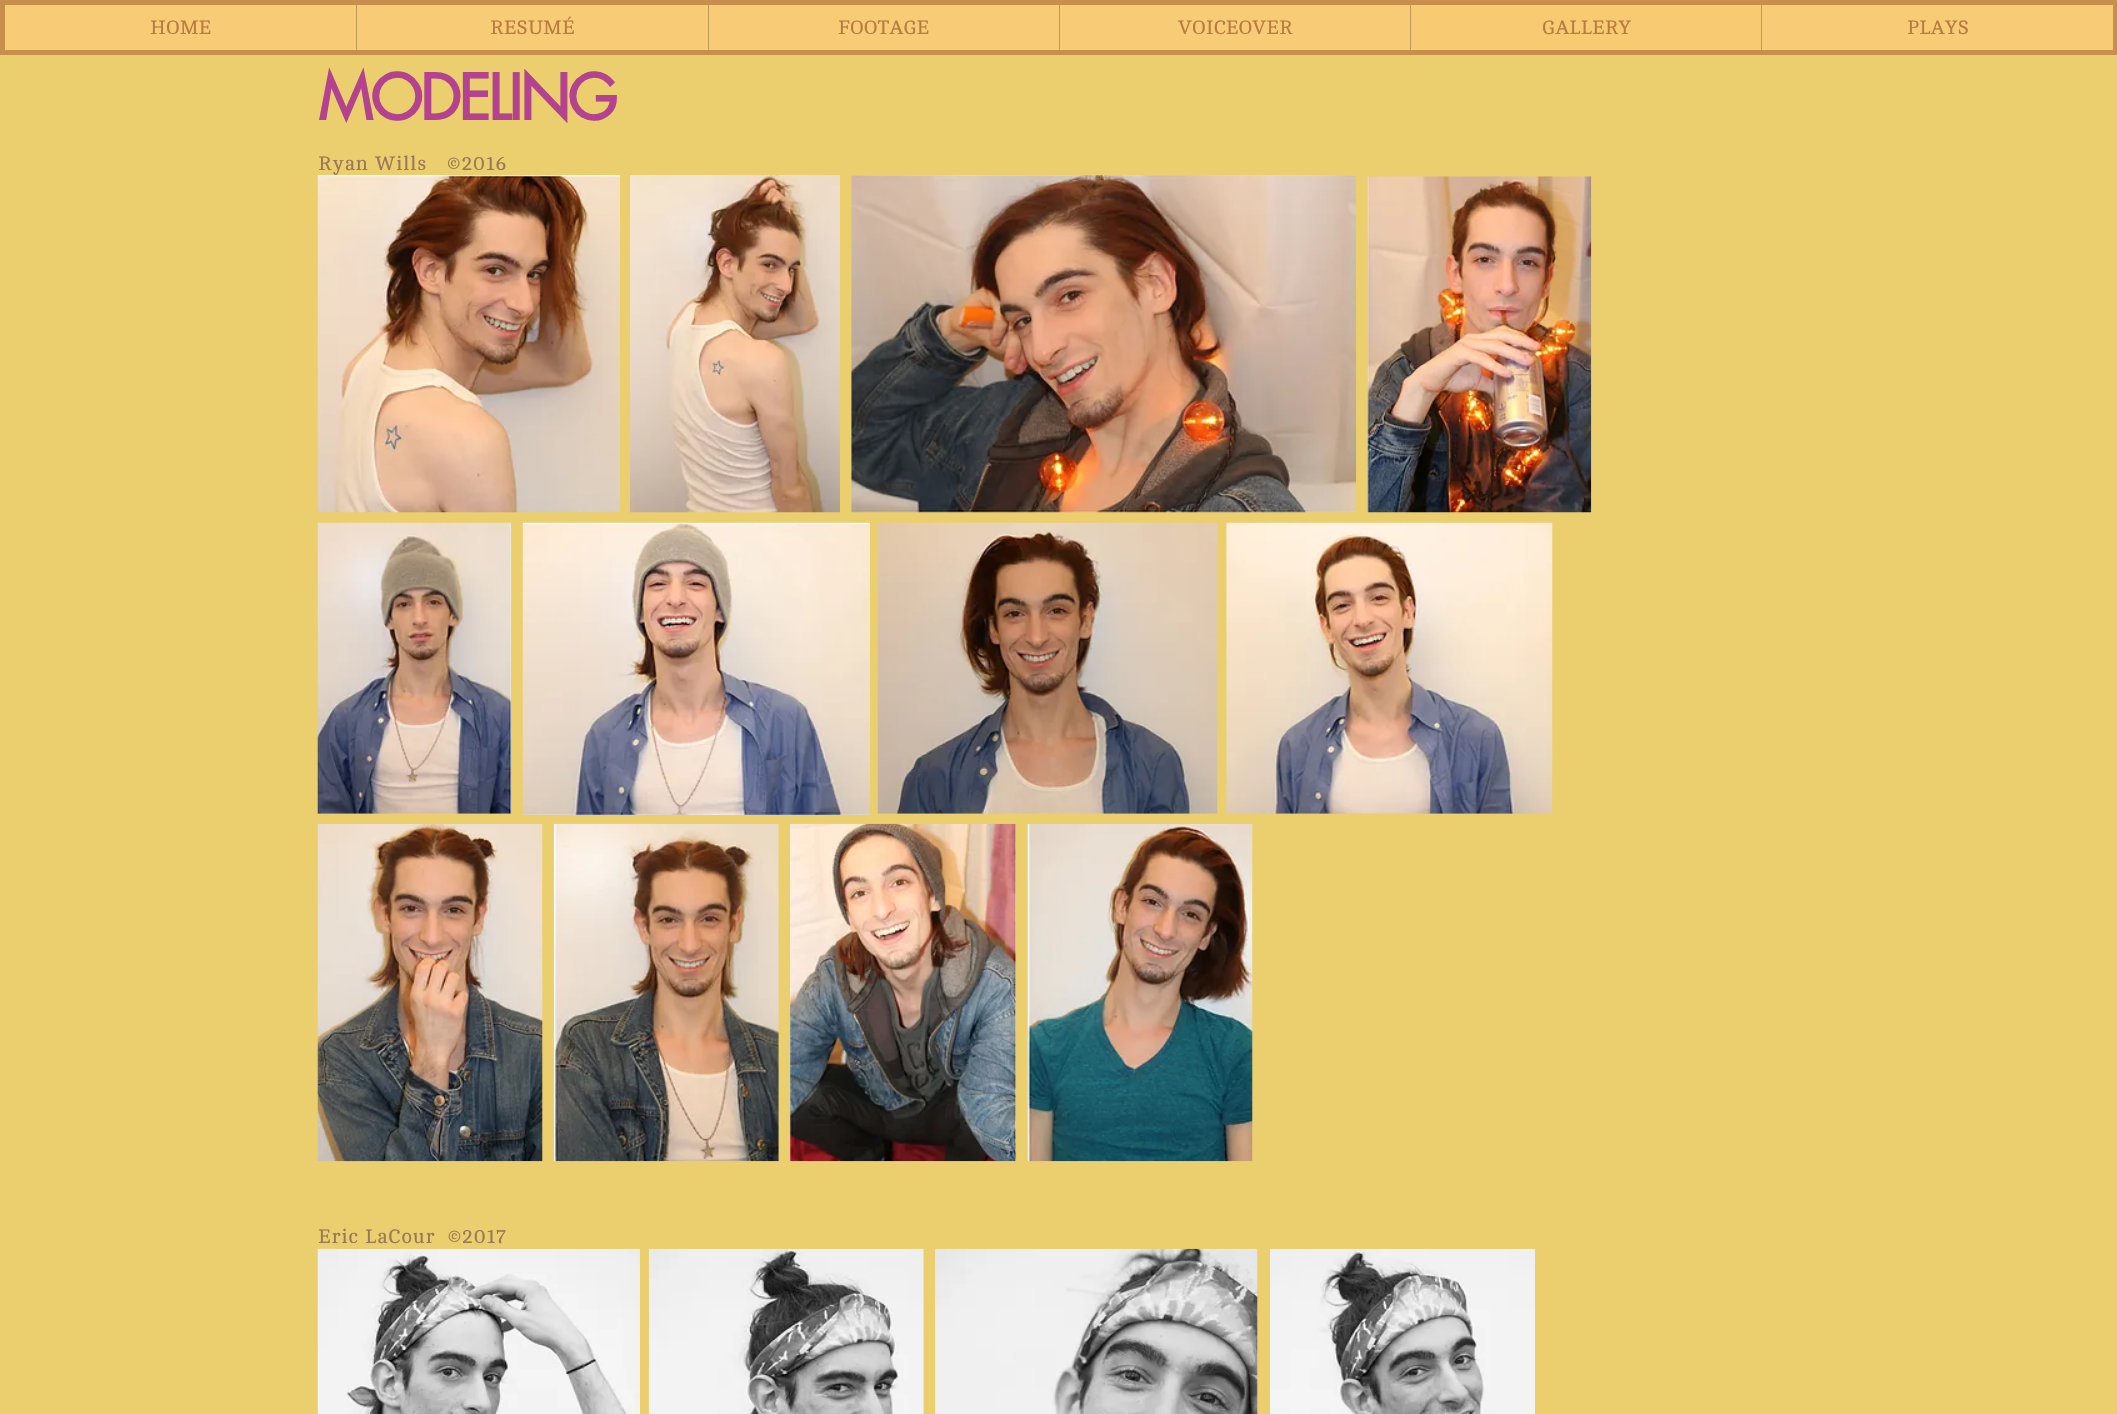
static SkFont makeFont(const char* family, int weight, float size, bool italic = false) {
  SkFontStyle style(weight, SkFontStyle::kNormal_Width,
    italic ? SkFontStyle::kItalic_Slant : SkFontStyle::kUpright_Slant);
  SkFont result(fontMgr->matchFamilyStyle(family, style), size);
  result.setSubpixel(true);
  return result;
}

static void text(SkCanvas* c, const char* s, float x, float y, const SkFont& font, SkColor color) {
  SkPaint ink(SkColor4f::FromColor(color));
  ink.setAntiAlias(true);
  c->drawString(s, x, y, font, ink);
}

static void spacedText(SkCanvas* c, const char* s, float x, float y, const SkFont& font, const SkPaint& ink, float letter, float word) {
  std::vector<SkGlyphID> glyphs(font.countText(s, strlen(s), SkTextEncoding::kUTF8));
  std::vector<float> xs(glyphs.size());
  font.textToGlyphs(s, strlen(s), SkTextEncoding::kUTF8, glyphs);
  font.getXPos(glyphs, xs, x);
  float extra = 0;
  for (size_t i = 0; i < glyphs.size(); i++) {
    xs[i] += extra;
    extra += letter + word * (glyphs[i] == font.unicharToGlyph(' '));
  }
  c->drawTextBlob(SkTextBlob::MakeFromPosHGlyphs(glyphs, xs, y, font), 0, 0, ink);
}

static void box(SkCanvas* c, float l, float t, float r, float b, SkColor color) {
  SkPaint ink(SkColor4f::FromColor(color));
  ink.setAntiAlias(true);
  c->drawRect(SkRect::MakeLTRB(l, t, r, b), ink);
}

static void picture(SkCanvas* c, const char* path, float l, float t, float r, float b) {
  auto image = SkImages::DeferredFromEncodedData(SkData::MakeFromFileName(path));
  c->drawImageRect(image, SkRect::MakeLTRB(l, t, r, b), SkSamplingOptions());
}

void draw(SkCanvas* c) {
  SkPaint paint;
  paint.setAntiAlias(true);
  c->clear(0xffebce6e);
  paint.setColor(0xfff8cc76);
  c->drawRect(SkRect::MakeLTRB(2.5f, 2.5f, 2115.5f, 52.5f), paint);
  paint.setStyle(SkPaint::kStroke_Style);
  paint.setStrokeWidth(5);
  paint.setColor(0xffc78e4c);
  c->drawRect(SkRect::MakeLTRB(2.5f, 2.5f, 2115.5f, 52.5f), paint);
  SkFont face1 = makeFont("Cambo", 400, 20);
  text(c, "HOME", 150, 34, face1, 0xffb87b40);
  box(c, 356, 5, 357, 50, 0xffbd9b5b);
  text(c, "RESUMÉ", 490, 34, face1, 0xffb87b40);
  box(c, 708, 5, 709, 50, 0xffbd9b5b);
  text(c, "FOOTAGE", 838, 34, face1, 0xffb87b40);
  box(c, 1059, 5, 1060, 50, 0xffbd9b5b);
  text(c, "VOICEOVER", 1178, 34, face1, 0xffb87b40);
  box(c, 1411, 5, 1761, 50, 0xfff8cb72);
  box(c, 1410, 5, 1411, 50, 0xffbd9a58);
  text(c, "GALLERY", 1542, 34, face1, 0xffb87b40);
  box(c, 1761, 5, 1762, 50, 0xffbd9b5b);
  text(c, "PLAYS", 1907, 34, face1, 0xffb87b40);
  SkFont face2 = makeFont("futura", 700, 61.25f);
  paint.setStyle(SkPaint::kFill_Style);
  paint.setColor(0xffb3438f);
  spacedText(c, "MODELING", 318, 120, face2, paint, -3, 0);
  paint.setColor(0xff997858);
  spacedText(c, "Ryan Wills", 318, 170, face1, paint, 1, 0);
  spacedText(c, "©2016", 447, 170, face1, paint, 1, 0);
  picture(c, "img_01.png", 317, 175, 620, 513);
  picture(c, "img_02.png", 630, 175, 840, 513);
  picture(c, "img_03.png", 851, 175, 1357, 513);
  picture(c, "img_04.png", 1367, 176, 1592, 513);
  picture(c, "img_05.png", 317, 522, 512, 814);
  picture(c, "img_06.png", 522, 522, 870, 815);
  picture(c, "img_07.png", 877, 522, 1218, 814);
  picture(c, "img_08.png", 1226, 522, 1553, 814);
  picture(c, "img_09.png", 317, 823, 543, 1162);
  picture(c, "img_10.png", 553, 823, 779, 1162);
  picture(c, "img_11.png", 790, 823, 1017, 1162);
  picture(c, "img_12.png", 1027, 823, 1253, 1162);
  spacedText(c, "Eric LaCour  ©2017", 318, 1243, face1, paint, 1, 0);
  picture(c, "img_13.png", 317, 1248, 640, 1414);
  picture(c, "img_14.png", 648, 1248, 924, 1414);
  picture(c, "img_15.png", 935, 1248, 1258, 1414);
  picture(c, "img_16.png", 1270, 1248, 1535, 1414);
}
